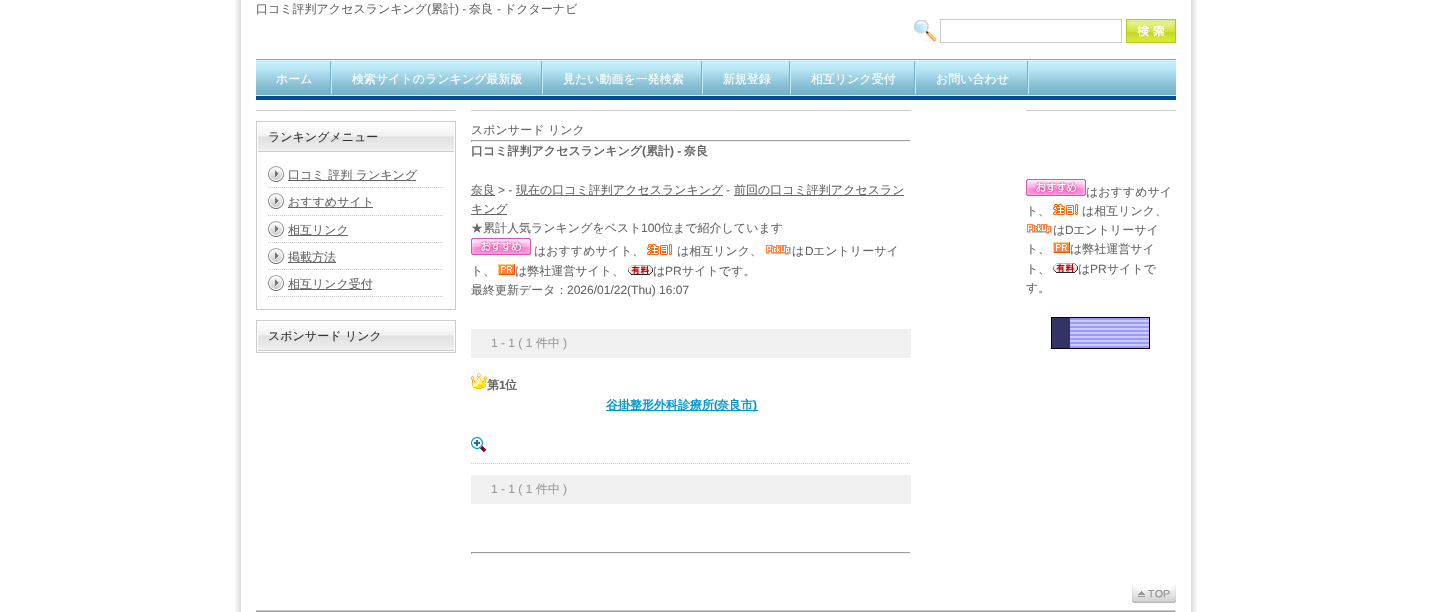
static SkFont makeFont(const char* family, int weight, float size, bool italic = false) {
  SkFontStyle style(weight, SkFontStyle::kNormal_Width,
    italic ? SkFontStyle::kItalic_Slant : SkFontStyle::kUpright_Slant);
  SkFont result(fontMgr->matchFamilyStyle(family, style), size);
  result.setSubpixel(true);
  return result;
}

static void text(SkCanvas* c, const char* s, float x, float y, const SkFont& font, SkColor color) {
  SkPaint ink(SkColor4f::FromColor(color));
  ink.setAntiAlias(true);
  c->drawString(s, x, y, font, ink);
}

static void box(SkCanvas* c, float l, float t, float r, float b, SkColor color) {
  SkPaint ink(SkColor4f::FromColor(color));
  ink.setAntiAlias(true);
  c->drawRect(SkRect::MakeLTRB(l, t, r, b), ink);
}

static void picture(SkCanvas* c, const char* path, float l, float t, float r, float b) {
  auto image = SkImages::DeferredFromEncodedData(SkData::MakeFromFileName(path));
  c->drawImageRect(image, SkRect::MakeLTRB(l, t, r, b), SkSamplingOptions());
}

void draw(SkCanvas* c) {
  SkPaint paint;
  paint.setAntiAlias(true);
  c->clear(0xffffffff);
  picture(c, "img_01.png", 235, 0, 1197, 612);
  SkFont face1 = makeFont("WenQuanYi Zen Hei", 500, 12);
  text(c, "口コミ評判アクセスランキング", 256, 13, face1, 0xff666666);
  SkFont face2 = makeFont("Liberation Sans", 400, 12);
  text(c, "(", 427, 13, face2, 0xff666666);
  text(c, "累計", 431, 13, face1, 0xff666666);
  text(c, ") -", 455, 13, face2, 0xff666666);
  text(c, "奈良", 469, 13, face1, 0xff666666);
  text(c, "-", 497, 13, face2, 0xff666666);
  text(c, "ドクターナビ", 504, 13, face1, 0xff666666);
  picture(c, "img_02.png", 914, 20, 937, 42);
  paint.setStyle(SkPaint::kStroke_Style);
  paint.setStrokeWidth(1);
  paint.setColor(0xffcccccc);
  c->drawRect(SkRect::MakeLTRB(940.5f, 19.5f, 1121.5f, 42.5f), paint);
  picture(c, "img_03.png", 1126, 19, 1176, 43);
  picture(c, "img_04.png", 256, 60, 1176, 96);
  box(c, 256, 59, 1176, 60, 0xff74b0c6);
  box(c, 256, 96, 1176, 100, 0xff004c99);
  picture(c, "img_05.png", 330, 61, 332, 94);
  text(c, "ホーム", 276, 83, face1, 0xffffffff);
  picture(c, "img_05.png", 541, 61, 543, 94);
  text(c, "検索サイトのランキング最新版", 352, 83, face1, 0xffffffff);
  picture(c, "img_05.png", 701, 61, 703, 94);
  text(c, "見たい動画を一発検索", 563, 83, face1, 0xffffffff);
  picture(c, "img_05.png", 789, 61, 791, 94);
  text(c, "新規登録", 723, 83, face1, 0xffffffff);
  picture(c, "img_05.png", 914, 61, 916, 94);
  text(c, "相互リンク受付", 811, 83, face1, 0xffffffff);
  picture(c, "img_05.png", 1027, 61, 1029, 94);
  text(c, "お問い合わせ", 936, 83, face1, 0xffffffff);
  box(c, 256, 110, 456, 111, 0xffcccccc);
  c->drawRect(SkRect::MakeLTRB(256.5f, 121.5f, 455.5f, 309.5f), paint);
  picture(c, "img_06.png", 258, 123, 454, 151);
  box(c, 258, 151, 454, 152, 0xffcccccc);
  text(c, "ランキングメニュー", 268, 141, face1, 0xff333333);
  picture(c, "img_07.png", 268, 187, 443, 188);
  picture(c, "img_08.png", 268, 166, 284, 182);
  box(c, 288, 180, 416, 181, 0xff666666);
  text(c, "口コミ 評判 ランキング", 288, 179, face1, 0xff666666);
  picture(c, "img_07.png", 268, 215, 443, 216);
  picture(c, "img_08.png", 268, 193, 284, 209);
  box(c, 288, 207, 373, 208, 0xff666666);
  text(c, "おすすめサイト", 288, 206, face1, 0xff666666);
  picture(c, "img_07.png", 268, 242, 443, 243);
  picture(c, "img_08.png", 268, 221, 284, 237);
  box(c, 288, 235, 348, 236, 0xff666666);
  text(c, "相互リンク", 288, 234, face1, 0xff666666);
  picture(c, "img_07.png", 268, 269, 443, 270);
  picture(c, "img_08.png", 268, 248, 284, 264);
  box(c, 288, 262, 336, 263, 0xff666666);
  text(c, "掲載方法", 288, 261, face1, 0xff666666);
  picture(c, "img_07.png", 268, 296, 443, 297);
  picture(c, "img_08.png", 268, 275, 284, 291);
  box(c, 288, 289, 372, 290, 0xff666666);
  text(c, "相互リンク受付", 288, 288, face1, 0xff666666);
  c->drawRect(SkRect::MakeLTRB(256.5f, 320.5f, 455.5f, 352.5f), paint);
  picture(c, "img_06.png", 258, 322, 454, 350);
  box(c, 258, 350, 454, 351, 0xffcccccc);
  text(c, "スポンサード リンク", 268, 340, face1, 0xff333333);
  box(c, 471, 110, 911, 111, 0xffcccccc);
  text(c, "スポンサード リンク", 471, 134, face1, 0xff666666);
  box(c, 471, 140, 911, 141, 0xff9f9f9f);
  box(c, 910, 140, 911, 142, 0xffeeeeee);
  box(c, 471, 141, 911, 142, 0xffeeeeee);
  box(c, 471, 140, 472, 142, 0xff9f9f9f);
  SkFont face3 = makeFont("WenQuanYi Zen Hei", 700, 12);
  text(c, "口コミ評判アクセスランキング", 471, 155, face3, 0xff666666);
  SkFont face4 = makeFont("Liberation Sans", 700, 12);
  text(c, "(", 642, 155, face4, 0xff666666);
  text(c, "累計", 646, 155, face3, 0xff666666);
  text(c, ") -", 670, 155, face4, 0xff666666);
  text(c, "奈良", 684, 155, face3, 0xff666666);
  box(c, 471, 195, 495, 196, 0xff666666);
  text(c, "奈良", 471, 194, face1, 0xff666666);
  text(c, "> -", 498, 194, face2, 0xff666666);
  box(c, 516, 195, 723, 196, 0xff666666);
  text(c, "現在の口コミ評判アクセスランキング", 516, 194, face1, 0xff666666);
  text(c, "-", 726, 194, face2, 0xff666666);
  box(c, 734, 195, 904, 196, 0xff666666);
  text(c, "前回の口コミ評判アクセスラン", 734, 194, face1, 0xff666666);
  box(c, 471, 214, 507, 215, 0xff666666);
  text(c, "キング", 471, 213, face1, 0xff666666);
  text(c, "★累計人気ランキングをベスト", 471, 232, face1, 0xff666666);
  text(c, "100", 641, 232, face2, 0xff666666);
  text(c, "位まで紹介しています", 661, 232, face1, 0xff666666);
  picture(c, "img_09.png", 471, 238, 531, 255);
  text(c, "はおすすめサイト、", 534, 255, face1, 0xff666666);
  picture(c, "img_10.png", 647, 244, 672, 255);
  text(c, "は相互リンク、", 677, 255, face1, 0xff666666);
  picture(c, "img_11.png", 766, 245, 791, 255);
  text(c, "は", 792, 255, face1, 0xff666666);
  text(c, "D", 805, 255, face2, 0xff666666);
  text(c, "エントリーサイ", 813, 255, face1, 0xff666666);
  text(c, "ト、", 471, 275, face1, 0xff666666);
  picture(c, "img_12.png", 498, 264, 515, 275);
  text(c, "は弊社運営サイト、", 515, 275, face1, 0xff666666);
  picture(c, "img_13.png", 628, 265, 653, 275);
  text(c, "は", 653, 275, face1, 0xff666666);
  text(c, "PR", 665, 275, face2, 0xff666666);
  text(c, "サイトです。", 682, 275, face1, 0xff666666);
  text(c, "最終更新データ：", 471, 294, face1, 0xff666666);
  text(c, "2026/01/22(Thu) 16:07", 567, 294, face2, 0xff666666);
  box(c, 471, 329, 911, 358, 0xfff0f0f0);
  text(c, "1 - 1 ( 1", 491, 347, face2, 0xff999999);
  text(c, "件中", 536, 347, face1, 0xff999999);
  text(c, ")", 563, 347, face2, 0xff999999);
  picture(c, "img_14.png", 471, 463, 910, 464);
  picture(c, "img_15.png", 471, 373, 487, 389);
  text(c, "第", 487, 389, face3, 0xff666666);
  text(c, "1", 499, 389, face4, 0xff666666);
  text(c, "位", 505, 389, face3, 0xff666666);
  box(c, 606, 410, 758, 411, 0xff0099cc);
  text(c, "谷掛整形外科診療所", 606, 409, face3, 0xff0099cc);
  text(c, "(", 714, 409, face4, 0xff0099cc);
  text(c, "奈良市", 717, 409, face3, 0xff0099cc);
  text(c, ")", 753, 409, face4, 0xff0099cc);
  picture(c, "img_16.png", 471, 437, 486, 452);
  box(c, 471, 475, 911, 504, 0xfff0f0f0);
  text(c, "1 - 1 ( 1", 491, 493, face2, 0xff999999);
  text(c, "件中", 536, 493, face1, 0xff999999);
  text(c, ")", 563, 493, face2, 0xff999999);
  box(c, 471, 552, 911, 553, 0xff9f9f9f);
  box(c, 910, 552, 911, 554, 0xffeeeeee);
  box(c, 471, 553, 911, 554, 0xffeeeeee);
  box(c, 471, 552, 472, 554, 0xff9f9f9f);
  box(c, 1026, 110, 1176, 111, 0xffcccccc);
  picture(c, "img_09.png", 1026, 179, 1086, 196);
  text(c, "はおすすめサイ", 1086, 196, face1, 0xff666666);
  text(c, "ト、", 1026, 215, face1, 0xff666666);
  picture(c, "img_10.png", 1053, 204, 1078, 215);
  text(c, "は相互リンク、", 1082, 215, face1, 0xff666666);
  picture(c, "img_11.png", 1027, 224, 1052, 234);
  text(c, "は", 1053, 234, face1, 0xff666666);
  text(c, "D", 1065, 234, face2, 0xff666666);
  text(c, "エントリーサイ", 1073, 234, face1, 0xff666666);
  text(c, "ト、", 1026, 253, face1, 0xff666666);
  picture(c, "img_12.png", 1053, 242, 1070, 253);
  text(c, "は弊社運営サイ", 1070, 253, face1, 0xff666666);
  text(c, "ト、", 1026, 273, face1, 0xff666666);
  picture(c, "img_13.png", 1053, 263, 1078, 273);
  text(c, "は", 1078, 273, face1, 0xff666666);
  text(c, "PR", 1090, 273, face2, 0xff666666);
  text(c, "サイトで", 1107, 273, face1, 0xff666666);
  text(c, "す。", 1026, 292, face1, 0xff666666);
  picture(c, "img_17.png", 1051, 317, 1150, 349);
  box(c, 256, 610, 1176, 611, 0xffcccccc);
  picture(c, "img_18.png", 1132, 584, 1176, 603);
  box(c, 256, 611, 1176, 612, 0xff9f9f9f);
  box(c, 1175, 611, 1176, 612, 0xffeeeeee);
}
